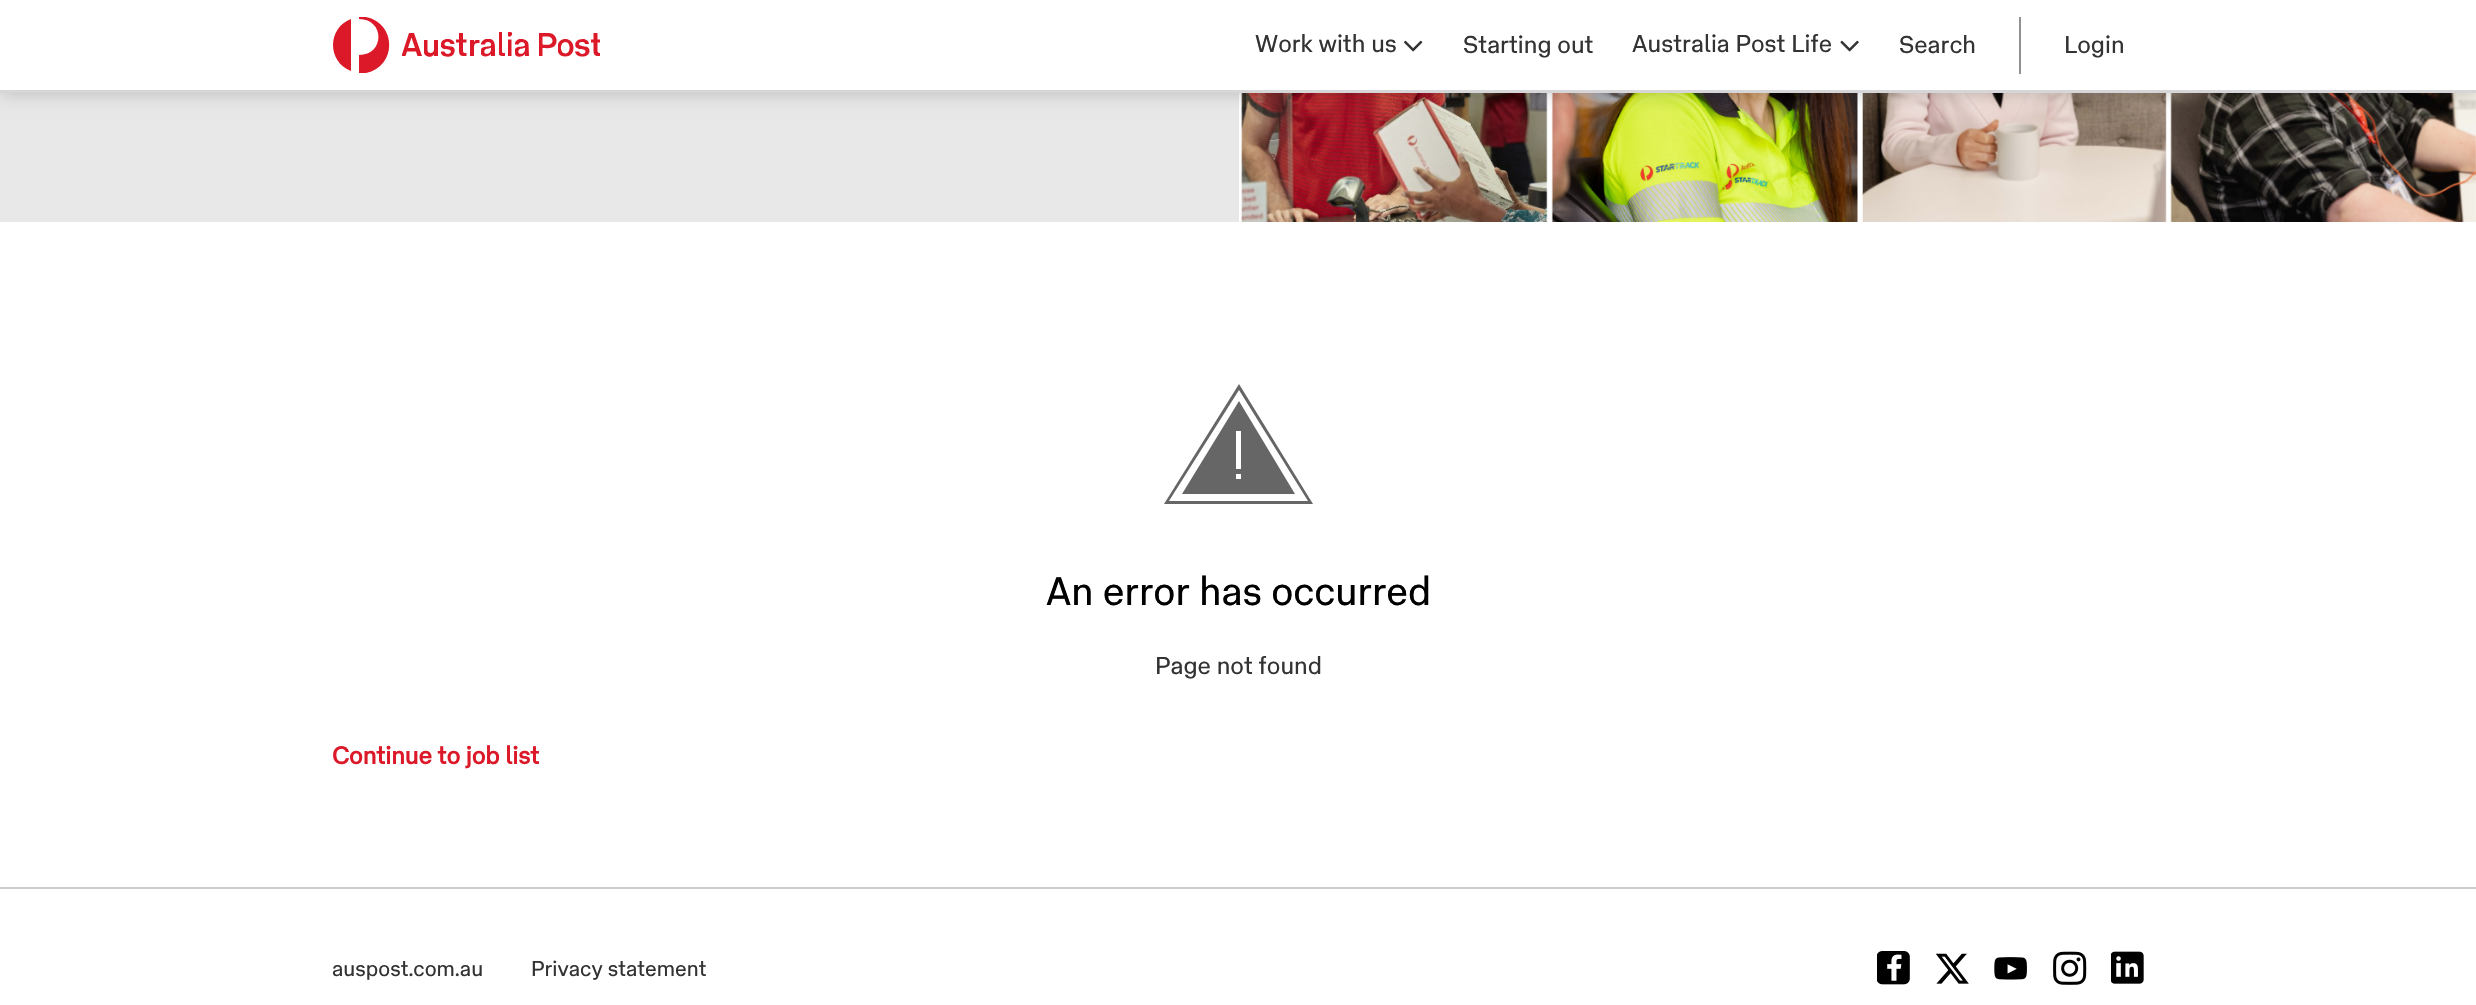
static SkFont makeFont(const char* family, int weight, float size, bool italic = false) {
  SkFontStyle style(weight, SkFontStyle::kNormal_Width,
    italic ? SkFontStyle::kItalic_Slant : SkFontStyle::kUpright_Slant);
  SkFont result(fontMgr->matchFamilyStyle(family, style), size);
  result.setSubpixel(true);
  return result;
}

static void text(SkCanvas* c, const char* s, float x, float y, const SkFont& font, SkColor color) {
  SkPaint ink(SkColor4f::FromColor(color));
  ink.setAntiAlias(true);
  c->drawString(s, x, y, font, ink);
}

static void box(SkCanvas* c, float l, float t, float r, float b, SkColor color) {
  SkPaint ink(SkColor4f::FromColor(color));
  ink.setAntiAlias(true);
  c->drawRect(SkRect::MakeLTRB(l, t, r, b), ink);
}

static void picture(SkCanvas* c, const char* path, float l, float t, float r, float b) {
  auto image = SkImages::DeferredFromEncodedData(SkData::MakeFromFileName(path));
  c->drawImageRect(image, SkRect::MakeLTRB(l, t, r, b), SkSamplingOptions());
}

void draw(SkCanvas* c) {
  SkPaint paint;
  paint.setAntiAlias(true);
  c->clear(0xffffffff);
  box(c, 0, 93, 1239, 222, 0xffe8e8e8);
  picture(c, "img_03.png", 1239, 93, 2476, 222);
  paint.setColor(0x33000000);
  paint.setMaskFilter(SkMaskFilter::MakeBlur(kNormal_SkBlurStyle, 9));
  c->drawRect(SkRect::MakeLTRB(0, 0, 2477, 93), paint);
  paint.setMaskFilter(nullptr);
  box(c, 0, 0, 2476, 90, 0xffffffff);
  box(c, 0, 90, 2476, 93, 0xffd6d6d8);
  paint.setColor(0xffdc1928);
  c->drawPath(SkPathBuilder().moveTo(351, 71).cubicTo(327, 62, 327, 28, 351, 19).close().moveTo(359, 17).lineTo(366, 17).cubicTo(397, 23, 397, 67, 366, 73).lineTo(359, 73).lineTo(359, 55).cubicTo(385, 55, 385, 19, 359, 19).close().detach(), paint);
  c->drawPath(SkPathBuilder(SkPathFillType::kEvenOdd).moveTo(414, 33).lineTo(422, 56).lineTo(417.5f, 56).lineTo(416, 51.5f).lineTo(407, 51.5f).lineTo(405.5f, 56).lineTo(402, 56).lineTo(402, 54.5f).lineTo(409, 33).close().moveTo(411.5f, 37.5f).lineTo(415, 48).lineTo(408, 48).close().detach(), paint);
  c->drawPath(SkPathBuilder().moveTo(424, 40).lineTo(427.5f, 40).lineTo(427.5f, 50).cubicTo(427.5f, 52, 428.5f, 53, 430.5f, 53).cubicTo(432.5f, 53, 434, 51.5f, 434, 49.5f).lineTo(434, 40).lineTo(438, 40).lineTo(438, 56).lineTo(434, 56).lineTo(434, 54.5f).cubicTo(431.5f, 58, 425.5f, 57.5f, 424, 53).close().moveTo(448, 54).cubicTo(446, 54, 445, 53, 444.5f, 51.5f).lineTo(441, 51.5f).lineTo(441, 53).cubicTo(441.5f, 55.5f, 444.5f, 56.5f, 446.5f, 56.5f).cubicTo(448, 57, 450, 56.5f, 451.5f, 56).cubicTo(453, 55, 454, 54, 454.5f, 52).cubicTo(456.5f, 43.5f, 445, 48, 444.5f, 44.5f).cubicTo(444, 41, 450, 41, 450.5f, 44).lineTo(454.5f, 44).cubicTo(454, 37, 441, 37.5f, 441, 44).lineTo(441, 46.5f).cubicTo(442, 48, 442.5f, 48.5f, 444, 49).cubicTo(446, 49.5f, 451.5f, 48.5f, 451, 52).cubicTo(450.5f, 52.5f, 450, 53, 449.5f, 53.5f).close().moveTo(463, 33).lineTo(463, 39.5f).lineTo(466.5f, 39.5f).lineTo(466.5f, 42.5f).lineTo(463, 42.5f).lineTo(463, 49.5f).cubicTo(463, 53, 463.5f, 53, 466.5f, 53).lineTo(466.5f, 56).lineTo(462.5f, 56).cubicTo(460, 55.5f, 459, 54, 459, 51).lineTo(459, 42.5f).lineTo(456, 42.5f).lineTo(456, 39.5f).lineTo(459, 39.5f).lineTo(459, 33).close().moveTo(470, 56).lineTo(470, 40).lineTo(474, 40).lineTo(474, 42).lineTo(475.5f, 40).lineTo(479.5f, 40).lineTo(479.5f, 43).cubicTo(474.5f, 43, 474, 44, 474, 48.5f).lineTo(474, 56).close().detach(), paint);
  c->drawPath(SkPathBuilder(SkPathFillType::kEvenOdd).moveTo(481, 43.5f).cubicTo(481.5f, 41.5f, 483.5f, 39.5f, 485.5f, 39).cubicTo(487, 39, 489, 39, 490.5f, 39).cubicTo(495.5f, 40.5f, 495, 46.5f, 495, 50.5f).lineTo(495, 56).lineTo(491, 56).lineTo(491, 54).cubicTo(489, 57, 482, 57.5f, 481, 54).lineTo(481, 49.5f).cubicTo(482, 45.5f, 490, 47.5f, 491, 45.5f).cubicTo(492.5f, 42, 485.5f, 40, 485, 44.5f).lineTo(481, 44.5f).close().moveTo(491, 47.5f).cubicTo(491, 49, 491, 50.5f, 490.5f, 51.5f).cubicTo(489, 55, 483, 54.5f, 484.5f, 50.5f).cubicTo(485.5f, 48, 489.5f, 49, 491, 47.5f).close().detach(), paint);
  c->drawPath(SkPathBuilder().moveTo(499, 32).lineTo(502, 32).lineTo(502, 51.5f).cubicTo(502, 52.5f, 502.5f, 53, 504, 53).lineTo(505, 53).lineTo(505, 56).cubicTo(503, 56, 500.5f, 56.5f, 499, 54.5f).close().detach(), paint);
  c->drawPath(SkPathBuilder(SkPathFillType::kEvenOdd).moveTo(508, 32.5f).lineTo(508.5f, 32).lineTo(511, 32).cubicTo(514, 33.5f, 510.5f, 38.5f, 508, 36).close().moveTo(511.5f, 39.5f).lineTo(511.5f, 56).lineTo(508, 56).lineTo(508, 39.5f).close().moveTo(515, 43).cubicTo(515.5f, 41, 517.5f, 39.5f, 519.5f, 39).cubicTo(523.5f, 38.5f, 528, 40, 528.5f, 44).lineTo(529, 56).lineTo(525, 56).lineTo(525, 54).cubicTo(523, 57, 516, 58, 515, 54).lineTo(515, 49).cubicTo(517, 45.5f, 524.5f, 47.5f, 525, 45).cubicTo(525, 41, 519, 41, 518.5f, 44.5f).lineTo(515, 44.5f).close().moveTo(525, 47.5f).cubicTo(525, 49, 525, 50.5f, 524.5f, 51.5f).cubicTo(523, 55, 517, 54.5f, 518.5f, 50.5f).cubicTo(519.5f, 48, 523, 49, 525, 47.5f).close().moveTo(548.5f, 33).cubicTo(557.5f, 33, 559.5f, 45, 552, 47.5f).cubicTo(549, 48.5f, 545.5f, 48, 542.5f, 48).lineTo(542.5f, 56).lineTo(539, 56).lineTo(539, 33).close().moveTo(547.5f, 36.5f).cubicTo(553, 36.5f, 554, 42.5f, 550.5f, 44).cubicTo(548.5f, 45.5f, 545, 44.5f, 542.5f, 44.5f).lineTo(542.5f, 36.5f).close().detach(), paint);
  c->drawPath(SkPathBuilder(SkPathFillType::kEvenOdd).moveTo(558, 44).cubicTo(559, 41, 561.5f, 39.5f, 564.5f, 39).lineTo(566, 39).cubicTo(570.5f, 39.5f, 573.5f, 43, 573.5f, 48).cubicTo(573.5f, 53, 570, 56.5f, 565.5f, 56.5f).cubicTo(562, 56.5f, 559, 55, 558, 52).close().moveTo(565.5f, 42).cubicTo(571, 42, 571, 53.5f, 565.5f, 53.5f).cubicTo(559.5f, 53.5f, 559.5f, 42, 565.5f, 42).close().detach(), paint);
  c->drawPath(SkPathBuilder().moveTo(582.5f, 54).cubicTo(580.5f, 54, 579.5f, 53, 579, 51.5f).lineTo(575, 51.5f).cubicTo(575.5f, 54.5f, 578, 56.5f, 582.5f, 56.5f).cubicTo(586.5f, 56.5f, 589.5f, 54.5f, 589.5f, 51).cubicTo(589.5f, 48, 588, 46.5f, 584.5f, 46.5f).lineTo(582, 46).cubicTo(580, 45.5f, 579, 45, 579, 44).cubicTo(579, 42.5f, 580.5f, 42, 582, 42).cubicTo(584, 42, 585, 42.5f, 585, 44).lineTo(589, 44).cubicTo(588.5f, 36, 573, 38, 575.5f, 46.5f).cubicTo(576, 47.5f, 577, 48, 578, 48.5f).lineTo(579, 49).cubicTo(581, 49.5f, 586, 48.5f, 585.5f, 52).cubicTo(585, 52.5f, 585, 53, 584, 53.5f).close().detach(), paint);
  c->save();
  c->clipRect(SkRect::MakeLTRB(333, 15, 600, 75));
  c->drawPath(SkPathBuilder().moveTo(597.5f, 33).lineTo(597.5f, 39.5f).lineTo(601.5f, 39.5f).lineTo(601.5f, 42.5f).lineTo(597.5f, 42.5f).lineTo(597.5f, 49.5f).cubicTo(597.5f, 53, 598, 53, 601.5f, 53).lineTo(601.5f, 56).lineTo(597, 56).cubicTo(594.5f, 55.5f, 593.5f, 54, 593.5f, 51).lineTo(593.5f, 42.5f).lineTo(591, 42.5f).lineTo(591, 39.5f).lineTo(593.5f, 39.5f).lineTo(593.5f, 33).close().detach(), paint);
  c->restore();
  SkFont face1 = makeFont("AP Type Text", 400, 24);
  text(c, "Work with us", 1255, 52, face1, 0xff333333);
  picture(c, "img_01.png", 1404, 40, 1423, 52);
  text(c, "Starting out", 1463, 53, face1, 0xff333333);
  text(c, "Australia Post Life", 1632, 52, face1, 0xff333333);
  picture(c, "img_02.png", 1840, 40, 1859, 52);
  text(c, "Search", 1899, 53, face1, 0xff333333);
  box(c, 2019, 17, 2021, 74, 0xff919194);
  text(c, "Login", 2064, 53, face1, 0xff333333);
  paint.setColor(0xff666666);
  c->drawPath(SkPathBuilder().moveTo(1239, 384).lineTo(1313, 504).lineTo(1164, 504).close().moveTo(1239, 390).lineTo(1169, 501).lineTo(1308, 501).close().moveTo(1239, 401).lineTo(1295, 494).lineTo(1182, 494).close().moveTo(1241, 474).lineTo(1236, 474).lineTo(1236, 479).lineTo(1241, 479).close().moveTo(1241, 431).lineTo(1236, 431).lineTo(1236, 469).lineTo(1241, 469).close().detach(), paint);
  SkFont face2 = makeFont("AP Type Text", 400, 39);
  text(c, "An error has occurred", 1046, 605, face2, 0xff000000);
  text(c, "Page not found", 1155, 674, face1, 0xff333333);
  SkFont face3 = makeFont("AP Type Text", 700, 24);
  text(c, "Continue to job list", 332, 764, face3, 0xffdc1928);
  box(c, 0, 887, 2476, 889, 0xffcccccc);
  SkFont face4 = makeFont("AP Type Text", 400, 21);
  text(c, "auspost.com.au", 332, 976, face4, 0xff333333);
  text(c, "Privacy statement", 531, 976, face4, 0xff333333);
  picture(c, "img_04.png", 1877, 951, 1910, 985);
  picture(c, "img_05.png", 1935, 953, 1969, 984);
  picture(c, "img_06.png", 1994, 957, 2027, 980);
  picture(c, "img_07.png", 2053, 951, 2087, 985);
  picture(c, "img_08.png", 2111, 951, 2144, 984);
}
